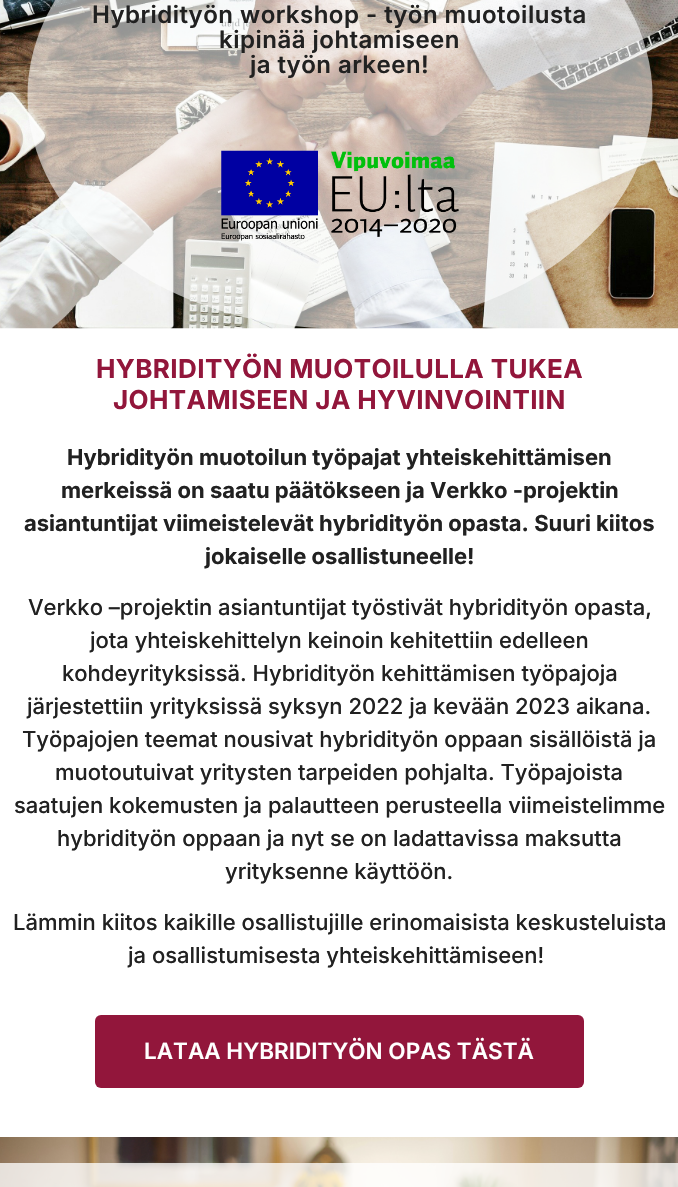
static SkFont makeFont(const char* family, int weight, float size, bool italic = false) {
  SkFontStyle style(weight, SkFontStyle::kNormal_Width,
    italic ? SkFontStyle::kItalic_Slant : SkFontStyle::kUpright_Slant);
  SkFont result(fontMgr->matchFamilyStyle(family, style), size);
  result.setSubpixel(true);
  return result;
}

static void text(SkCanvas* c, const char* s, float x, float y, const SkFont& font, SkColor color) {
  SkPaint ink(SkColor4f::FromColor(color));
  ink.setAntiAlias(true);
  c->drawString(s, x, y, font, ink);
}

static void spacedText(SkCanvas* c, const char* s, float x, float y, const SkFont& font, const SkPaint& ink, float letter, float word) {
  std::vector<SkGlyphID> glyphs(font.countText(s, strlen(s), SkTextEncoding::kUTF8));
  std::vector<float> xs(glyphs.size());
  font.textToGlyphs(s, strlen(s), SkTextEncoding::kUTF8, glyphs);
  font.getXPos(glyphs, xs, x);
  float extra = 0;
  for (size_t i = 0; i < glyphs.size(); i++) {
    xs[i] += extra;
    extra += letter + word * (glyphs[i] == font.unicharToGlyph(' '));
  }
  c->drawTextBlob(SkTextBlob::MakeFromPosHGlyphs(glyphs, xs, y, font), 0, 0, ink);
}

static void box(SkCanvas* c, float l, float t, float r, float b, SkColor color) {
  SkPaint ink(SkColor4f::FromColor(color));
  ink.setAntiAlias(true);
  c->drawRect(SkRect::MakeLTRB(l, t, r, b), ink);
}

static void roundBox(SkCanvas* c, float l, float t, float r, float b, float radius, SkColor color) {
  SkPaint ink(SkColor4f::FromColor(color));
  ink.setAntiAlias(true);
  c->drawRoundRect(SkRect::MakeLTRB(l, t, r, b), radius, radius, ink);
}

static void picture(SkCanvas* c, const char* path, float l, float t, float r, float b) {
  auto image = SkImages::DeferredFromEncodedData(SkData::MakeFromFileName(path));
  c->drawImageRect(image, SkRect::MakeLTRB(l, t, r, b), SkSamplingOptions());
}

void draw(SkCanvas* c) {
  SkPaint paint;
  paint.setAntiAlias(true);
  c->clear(0xffffffff);
  picture(c, "img_01.png", 0, 0, 678, 329);
  paint.setColor(0x94ffffff);
  c->drawOval(SkRect::MakeLTRB(27.5f, -136.5f, 652.5f, 328.5f), paint);
  SkFont face1 = makeFont("Inter", 600, 24);
  paint.setColor(0xff212121);
  spacedText(c, "Hybridityön workshop - työn muotoilusta", 92, 23, face1, paint, 0.5f, 0);
  spacedText(c, "kipinää johtamiseen", 219, 48, face1, paint, 0.5f, 0);
  spacedText(c, "ja työn arkeen!", 250, 73, face1, paint, 0.5f, 0);
  picture(c, "img_02.png", 221, 150, 459, 241);
  SkFont face2 = makeFont("Inter", 700, 26);
  paint.setColor(0xff92163b);
  spacedText(c, "HYBRIDITYÖN MUOTOILULLA TUKEA", 96, 378, face2, paint, 0.4f, 0);
  spacedText(c, "JOHTAMISEEN JA HYVINVOINTIIN", 113, 409, face2, paint, 0.4f, 0);
  SkFont face3 = makeFont("Inter", 700, 22);
  text(c, "Hybridityön muotoilun työpajat yhteiskehittämisen", 67, 465, face3, 0xff212121);
  text(c, "merkeissä on saatu päätökseen ja Verkko -projektin", 61, 498, face3, 0xff212121);
  text(c, "asiantuntijat viimeistelevät hybridityön opasta. Suuri kiitos", 24, 531, face3, 0xff212121);
  text(c, "jokaiselle osallistuneelle!", 205, 564, face3, 0xff212121);
  SkFont face4 = makeFont("Inter", 500, 22);
  text(c, "Verkko –projektin asiantuntijat työstivät hybridityön opasta,", 28, 615, face4, 0xff212121);
  text(c, "jota yhteiskehittelyn keinoin kehitettiin edelleen", 90, 648, face4, 0xff212121);
  text(c, "kohdeyrityksissä. Hybridityön kehittämisen työpajoja", 62, 681, face4, 0xff212121);
  text(c, "järjestettiin yrityksissä syksyn 2022 ja kevään 2023 aikana.", 27, 714, face4, 0xff212121);
  text(c, "Työpajojen teemat nousivat hybridityön oppaan sisällöistä ja", 22, 747, face4, 0xff212121);
  text(c, "muotoutuivat yritysten tarpeiden pohjalta. Työpajoista", 55, 780, face4, 0xff212121);
  text(c, "saatujen kokemusten ja palautteen perusteella viimeistelimme", 14, 813, face4, 0xff212121);
  text(c, "hybridityön oppaan ja nyt se on ladattavissa maksutta", 57, 846, face4, 0xff212121);
  text(c, "yrityksenne käyttöön.", 225, 879, face4, 0xff212121);
  text(c, "Lämmin kiitos kaikille osallistujille erinomaisista keskusteluista", 13, 930, face4, 0xff212121);
  text(c, "ja osallistumisesta yhteiskehittämiseen!", 128, 963, face4, 0xff212121);
  roundBox(c, 95, 1015, 584, 1088, 6, 0xff92163b);
  SkFont face5 = makeFont("Inter", 600, 22.5f);
  text(c, "LATAA HYBRIDITYÖN OPAS TÄSTÄ", 144, 1059, face5, 0xffffffff);
  picture(c, "img_03.png", 0, 1137, 678, 1187);
  box(c, 0, 1163, 678, 1187, 0xc4ffffff);
}
